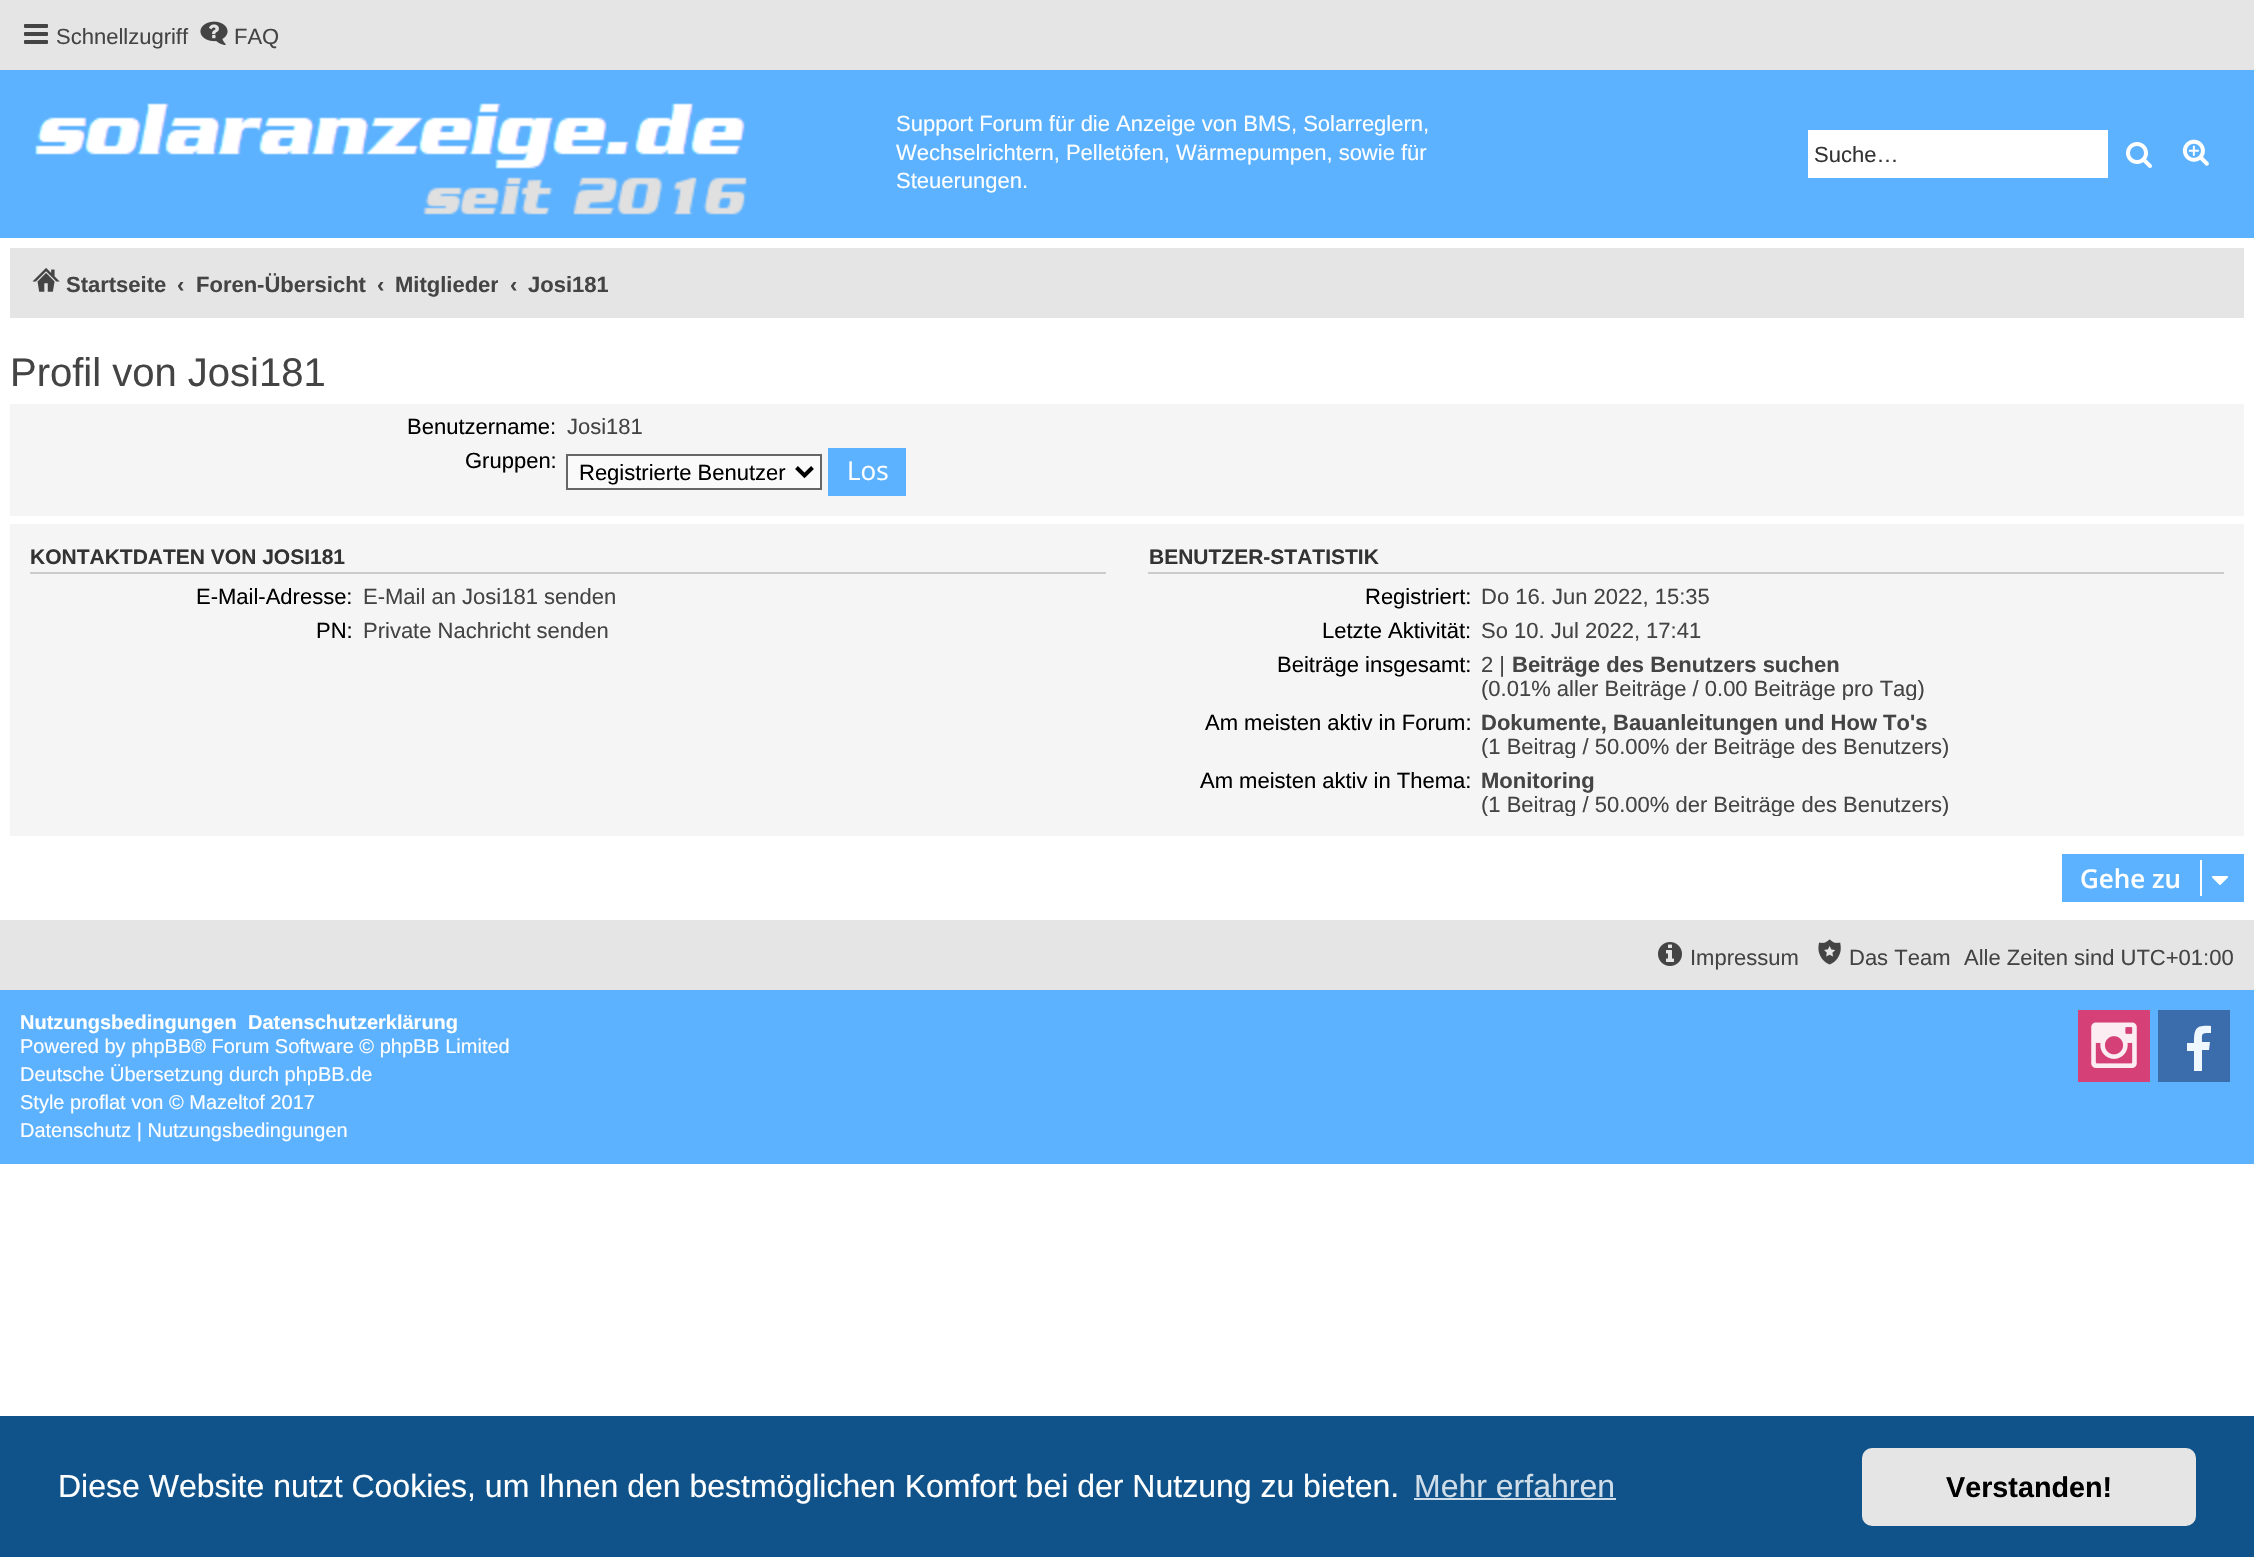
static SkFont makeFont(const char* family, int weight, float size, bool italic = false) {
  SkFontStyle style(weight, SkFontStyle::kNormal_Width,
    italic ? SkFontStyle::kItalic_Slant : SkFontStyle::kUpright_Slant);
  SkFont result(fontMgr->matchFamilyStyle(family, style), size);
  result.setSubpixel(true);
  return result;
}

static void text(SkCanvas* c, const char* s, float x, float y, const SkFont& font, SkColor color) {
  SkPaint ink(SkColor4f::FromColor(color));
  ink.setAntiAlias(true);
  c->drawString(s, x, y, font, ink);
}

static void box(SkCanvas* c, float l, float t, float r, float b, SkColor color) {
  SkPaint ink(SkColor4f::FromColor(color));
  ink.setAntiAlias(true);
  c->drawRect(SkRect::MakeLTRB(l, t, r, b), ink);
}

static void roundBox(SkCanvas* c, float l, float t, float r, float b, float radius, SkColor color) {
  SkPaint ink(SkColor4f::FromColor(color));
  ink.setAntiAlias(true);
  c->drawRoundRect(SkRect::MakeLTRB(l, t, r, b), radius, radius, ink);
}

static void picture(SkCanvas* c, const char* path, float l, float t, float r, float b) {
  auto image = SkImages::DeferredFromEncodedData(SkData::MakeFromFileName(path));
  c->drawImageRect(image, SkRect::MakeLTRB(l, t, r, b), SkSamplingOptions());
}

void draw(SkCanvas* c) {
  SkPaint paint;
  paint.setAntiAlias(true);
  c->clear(0xffffffff);
  box(c, 0, 0, 2254, 70, 0xffe5e5e5);
  picture(c, "img_01.png", 24, 24, 48, 44);
  SkFont face1 = makeFont("Liberation Sans", 400, 22);
  text(c, "Schnellzugriff", 56, 44, face1, 0xff444444);
  picture(c, "img_02.png", 200, 21, 228, 45);
  text(c, "FAQ", 234, 44, face1, 0xff444444);
  box(c, 0, 70, 2254, 238, 0xff5db2ff);
  picture(c, "img_03.png", 35, 103, 747, 215);
  text(c, "Support Forum für die Anzeige von BMS, Solarreglern,", 896, 131, face1, 0xffffffff);
  text(c, "Wechselrichtern, Pelletöfen, Wärmepumpen, sowie für", 896, 160, face1, 0xffffffff);
  text(c, "Steuerungen.", 896, 188, face1, 0xffffffff);
  box(c, 1808, 130, 2108, 178, 0xffffffff);
  text(c, "Suche…", 1814, 162, face1, 0xff333333);
  picture(c, "img_04.png", 2126, 142, 2152, 168);
  picture(c, "img_05.png", 2182, 139, 2209, 166);
  box(c, 10, 248, 2244, 318, 0xffe5e5e5);
  picture(c, "img_06.png", 32, 268, 60, 292);
  SkFont face2 = makeFont("Liberation Sans", 700, 22);
  text(c, "Startseite", 66, 292, face2, 0xff444444);
  text(c, "‹", 177, 292, face2, 0xff444444);
  text(c, "Foren-Übersicht", 196, 292, face2, 0xff444444);
  text(c, "‹", 377, 292, face2, 0xff444444);
  c->save();
  c->clipRect(SkRect::MakeLTRB(394, 260, 498, 308));
  text(c, "Mitglieder", 395, 292, face2, 0xff444444);
  c->restore();
  text(c, "‹", 510, 292, face2, 0xff444444);
  c->save();
  c->clipRect(SkRect::MakeLTRB(528, 260, 608, 308));
  text(c, "Josi181", 528, 292, face2, 0xff444444);
  c->restore();
  SkFont face3 = makeFont("Liberation Sans", 400, 40);
  text(c, "Profil von Josi181", 10, 386, face3, 0xff444444);
  box(c, 10, 404, 2244, 516, 0xfff5f5f5);
  text(c, "Benutzername:", 407, 434, face1, 0xff000000);
  text(c, "Josi181", 567, 434, face1, 0xff444444);
  text(c, "Gruppen:", 465, 468, face1, 0xff000000);
  paint.setColor(0xfffafafa);
  c->drawRect(SkRect::MakeLTRB(567, 455, 821, 489), paint);
  paint.setStyle(SkPaint::kStroke_Style);
  paint.setStrokeWidth(2);
  paint.setColor(0xff666666);
  c->drawRect(SkRect::MakeLTRB(567, 455, 821, 489), paint);
  paint.setStrokeWidth(4);
  paint.setColor(0xff000000);
  c->drawPath(SkPathBuilder().moveTo(796.5f, 467.5f).lineTo(804.5f, 475.5f).lineTo(812.5f, 467.5f).detach(), paint);
  text(c, "Registrierte Benutzer", 579, 480, face1, 0xff000000);
  box(c, 828, 448, 906, 496, 0xff5db2ff);
  SkFont face4 = makeFont("Open Sans", 400, 26);
  text(c, "Los", 847, 480, face4, 0xffffffff);
  box(c, 10, 524, 2244, 836, 0xfff5f5f5);
  box(c, 30, 572, 1106, 574, 0xffcccccc);
  SkFont face5 = makeFont("Liberation Sans", 700, 21);
  text(c, "KONTAKTDATEN VON JOSI181", 30, 564, face5, 0xff333333);
  text(c, "E-Mail-Adresse:", 196, 604, face1, 0xff000000);
  text(c, "E-Mail an Josi181 senden", 363, 604, face1, 0xff444444);
  text(c, "PN:", 316, 638, face1, 0xff000000);
  text(c, "Private Nachricht senden", 363, 638, face1, 0xff444444);
  box(c, 1148, 572, 2224, 574, 0xffcccccc);
  text(c, "BENUTZER-STATISTIK", 1149, 564, face5, 0xff333333);
  text(c, "Registriert:", 1365, 604, face1, 0xff000000);
  text(c, "Do 16. Jun 2022, 15:35", 1481, 604, face1, 0xff444444);
  text(c, "Letzte Aktivität:", 1322, 638, face1, 0xff000000);
  text(c, "So 10. Jul 2022, 17:41", 1481, 638, face1, 0xff444444);
  text(c, "Beiträge insgesamt:", 1277, 672, face1, 0xff000000);
  text(c, "2 |", 1481, 672, face1, 0xff444444);
  text(c, "Beiträge des Benutzers suchen", 1512, 672, face2, 0xff444444);
  c->save();
  c->clipRect(SkRect::MakeLTRB(1472, 652, 2180, 700));
  text(c, "(0.01% aller Beiträge / 0.00 Beiträge pro Tag)", 1481, 696, face1, 0xff444444);
  c->restore();
  text(c, "Am meisten aktiv in Forum:", 1205, 730, face1, 0xff000000);
  text(c, "Dokumente, Bauanleitungen und How To's", 1481, 730, face2, 0xff444444);
  c->save();
  c->clipRect(SkRect::MakeLTRB(1472, 710, 2180, 758));
  text(c, "(1 Beitrag / 50.00% der Beiträge des Benutzers)", 1481, 754, face1, 0xff444444);
  c->restore();
  text(c, "Am meisten aktiv in Thema:", 1200, 788, face1, 0xff000000);
  text(c, "Monitoring", 1481, 788, face2, 0xff444444);
  c->save();
  c->clipRect(SkRect::MakeLTRB(1472, 768, 2180, 816));
  text(c, "(1 Beitrag / 50.00% der Beiträge des Benutzers)", 1481, 812, face1, 0xff444444);
  c->restore();
  box(c, 2062, 854, 2244, 902, 0xff5db2ff);
  SkFont face6 = makeFont("Open Sans", 600, 26);
  text(c, "Gehe zu", 2080, 888, face6, 0xffffffff);
  box(c, 2200, 860, 2202, 896, 0xffffffff);
  picture(c, "img_07.png", 2212, 876, 2228, 885);
  box(c, 0, 920, 2254, 990, 0xffe5e5e5);
  picture(c, "img_08.png", 1658, 942, 1682, 966);
  text(c, "Impressum", 1690, 965, face1, 0xff444444);
  picture(c, "img_09.png", 1818, 939, 1841, 965);
  text(c, "Das Team", 1849, 965, face1, 0xff444444);
  text(c, "Alle Zeiten sind UTC+01:00", 1964, 965, face1, 0xff444444);
  box(c, 0, 990, 2254, 1164, 0xff5db2ff);
  SkFont face7 = makeFont("Liberation Sans", 700, 20);
  text(c, "Nutzungsbedingungen", 20, 1029, face7, 0xffffffff);
  text(c, "Datenschutzerklärung", 248, 1029, face7, 0xffffffff);
  SkFont face8 = makeFont("Liberation Sans", 400, 20);
  text(c, "Powered by phpBB® Forum Software © phpBB Limited", 20, 1053, face8, 0xffffffff);
  text(c, "Deutsche Übersetzung durch phpBB.de", 20, 1081, face8, 0xffffffff);
  text(c, "Style proflat von © Mazeltof 2017", 20, 1109, face8, 0xffffffff);
  text(c, "Datenschutz | Nutzungsbedingungen", 20, 1137, face8, 0xffffffff);
  box(c, 2078, 1010, 2150, 1082, 0xffd54176);
  picture(c, "img_10.png", 2091, 1022, 2137, 1068);
  box(c, 2158, 1010, 2230, 1082, 0xff3b6dac);
  paint.setStyle(SkPaint::kFill_Style);
  paint.setColor(0xffeff7ff);
  c->drawPath(SkPathBuilder().moveTo(2211, 1026).lineTo(2211, 1033).cubicTo(2201, 1033, 2202, 1033, 2202, 1042).lineTo(2210, 1042).lineTo(2209, 1050).lineTo(2202, 1050).lineTo(2202, 1071).lineTo(2194, 1071).lineTo(2194, 1051).lineTo(2187, 1051).lineTo(2187, 1043).lineTo(2194, 1043).cubicTo(2194, 1028, 2196, 1025, 2211, 1026).close().detach(), paint);
  box(c, 0, 1416, 2254, 1557, 0xff0f538a);
  SkFont face9 = makeFont("Liberation Sans", 400, 32);
  text(c, "Diese Website nutzt Cookies, um Ihnen den bestmöglichen Komfort bei der Nutzung zu bieten.", 58, 1497, face9, 0xffffffff);
  text(c, "Mehr erfahren", 1414, 1497, face9, 0xffcfdde8);
  box(c, 1414, 1498, 1616, 1500, 0xffcfdde8);
  roundBox(c, 1862, 1448, 2196, 1526, 10, 0xffe5e5e5);
  SkFont face10 = makeFont("Liberation Sans", 700, 28.75f);
  text(c, "Verstanden!", 1946, 1497, face10, 0xff000000);
}
